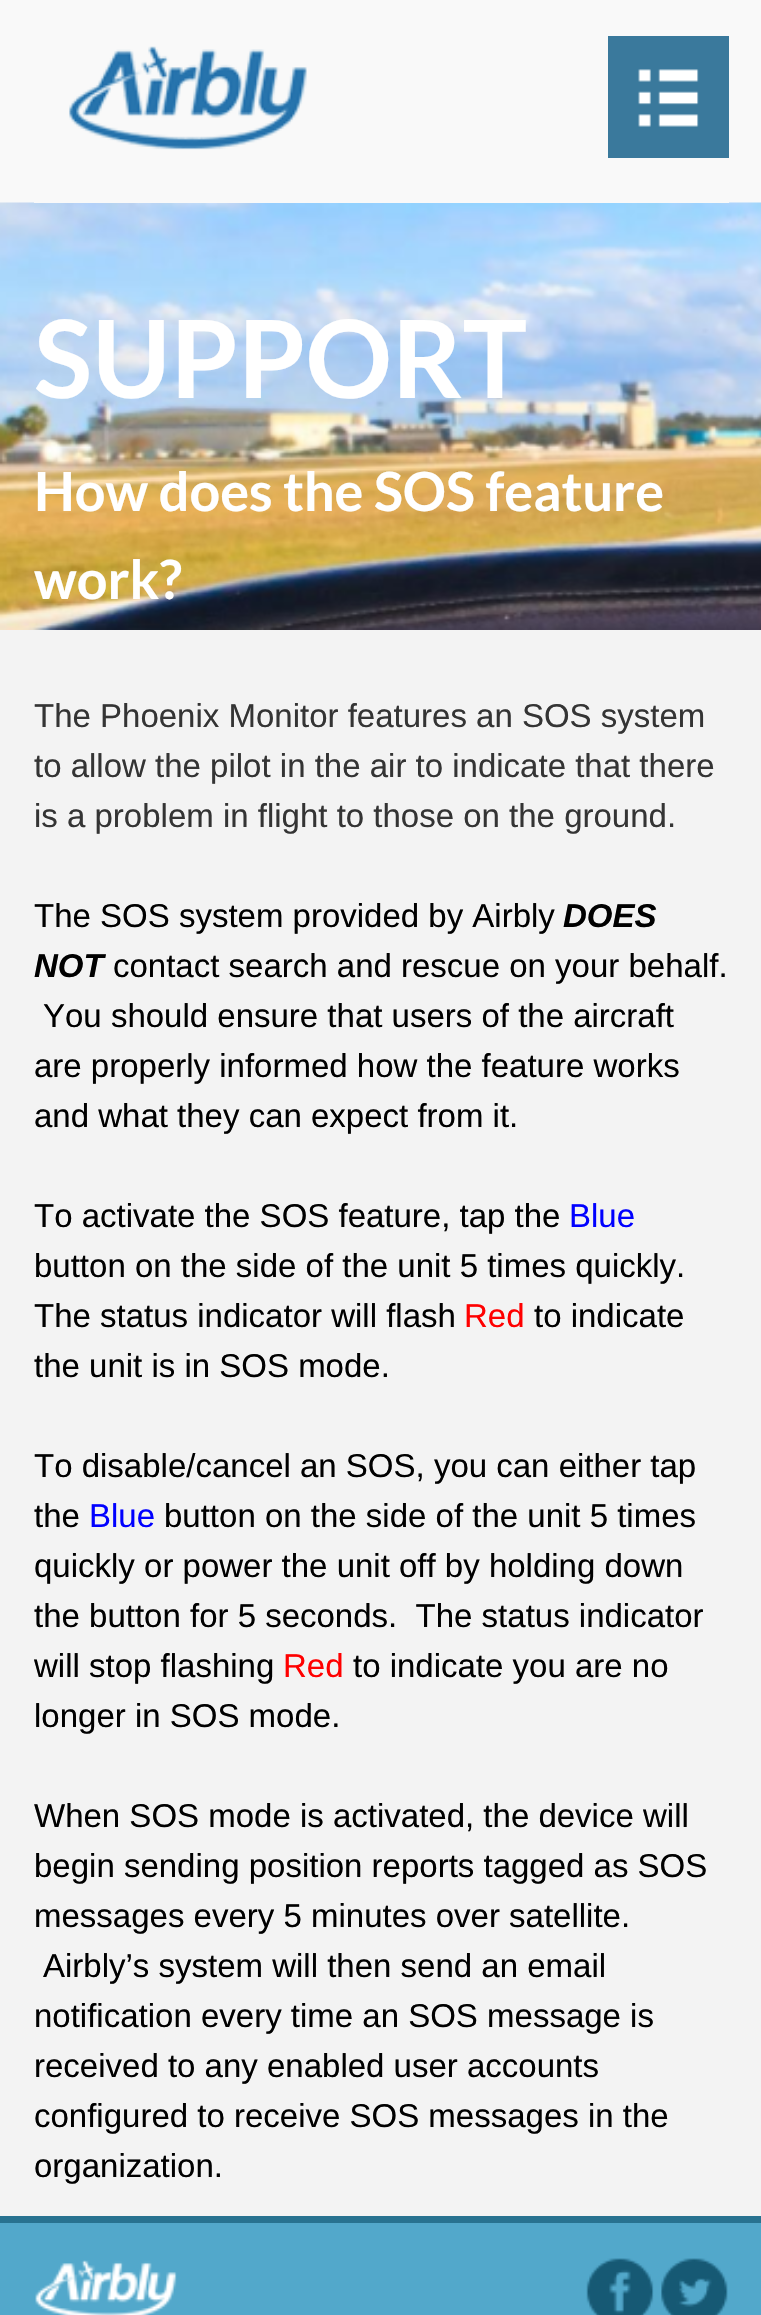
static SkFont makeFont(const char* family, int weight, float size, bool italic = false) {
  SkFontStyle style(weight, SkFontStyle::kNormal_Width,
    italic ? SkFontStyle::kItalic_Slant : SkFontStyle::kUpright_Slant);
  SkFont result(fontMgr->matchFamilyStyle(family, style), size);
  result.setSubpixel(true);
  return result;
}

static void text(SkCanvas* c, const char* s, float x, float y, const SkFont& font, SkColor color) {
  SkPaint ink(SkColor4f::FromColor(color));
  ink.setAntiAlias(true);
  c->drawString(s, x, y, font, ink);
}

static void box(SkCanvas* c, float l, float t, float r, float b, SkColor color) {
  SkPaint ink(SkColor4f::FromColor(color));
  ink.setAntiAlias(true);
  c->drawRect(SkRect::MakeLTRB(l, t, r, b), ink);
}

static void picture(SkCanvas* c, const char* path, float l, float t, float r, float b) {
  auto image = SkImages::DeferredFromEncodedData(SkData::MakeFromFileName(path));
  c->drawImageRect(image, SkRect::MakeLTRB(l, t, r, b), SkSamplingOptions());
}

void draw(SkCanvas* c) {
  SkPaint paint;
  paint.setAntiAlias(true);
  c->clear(0xfff3f3f3);
  box(c, 0, 0, 761, 203, 0xfff9f9f9);
  picture(c, "img_03.png", 0, 202, 761, 630);
  box(c, 34, 202, 729, 203, 0xfff9f9f9);
  picture(c, "img_01.png", 69, 46, 307, 150);
  box(c, 608, 36, 729, 158, 0xff3a799c);
  picture(c, "img_02.png", 638, 69, 699, 127);
  SkFont face1 = makeFont("Lato", 700, 108);
  text(c, "SUPPORT", 34, 398, face1, 0xffffffff);
  SkFont face2 = makeFont("Lato", 700, 54);
  text(c, "How does the SOS feature", 34, 511, face2, 0xffffffff);
  text(c, "work?", 34, 599, face2, 0xffffffff);
  SkFont face3 = makeFont("Liberation Sans", 400, 33);
  text(c, "The Phoenix Monitor features an SOS system", 34, 727, face3, 0xff343434);
  text(c, "to allow the pilot in the air to indicate that there", 34, 777, face3, 0xff343434);
  text(c, "is a problem in flight to those on the ground.", 34, 827, face3, 0xff343434);
  text(c, "The SOS system provided by Airbly", 34, 927, face3, 0xff000000);
  SkFont face4 = makeFont("Liberation Sans", 700, 33, true);
  text(c, "DOES", 563, 927, face4, 0xff000000);
  text(c, "NOT", 34, 977, face4, 0xff000000);
  text(c, "contact search and rescue on your behalf.", 113, 977, face3, 0xff000000);
  text(c, "You should ensure that users of the aircraft", 43, 1027, face3, 0xff000000);
  text(c, "are properly informed how the feature works", 34, 1077, face3, 0xff000000);
  text(c, "and what they can expect from it.", 34, 1127, face3, 0xff000000);
  text(c, "To activate the SOS feature, tap the", 34, 1227, face3, 0xff000000);
  text(c, "Blue", 569, 1227, face3, 0xff0000ff);
  text(c, "button on the side of the unit 5 times quickly.", 34, 1277, face3, 0xff000000);
  text(c, "The status indicator will flash", 34, 1327, face3, 0xff000000);
  text(c, "Red", 464, 1327, face3, 0xffff0000);
  text(c, "to indicate", 534, 1327, face3, 0xff000000);
  text(c, "the unit is in SOS mode.", 34, 1377, face3, 0xff000000);
  text(c, "To disable/cancel an SOS, you can either tap", 34, 1477, face3, 0xff000000);
  text(c, "the", 34, 1527, face3, 0xff000000);
  text(c, "Blue", 89, 1527, face3, 0xff0000ff);
  text(c, "button on the side of the unit 5 times", 164, 1527, face3, 0xff000000);
  text(c, "quickly or power the unit off by holding down", 34, 1577, face3, 0xff000000);
  text(c, "the button for 5 seconds.  The status indicator", 34, 1627, face3, 0xff000000);
  text(c, "will stop flashing", 34, 1677, face3, 0xff000000);
  text(c, "Red", 283, 1677, face3, 0xffff0000);
  text(c, "to indicate you are no", 353, 1677, face3, 0xff000000);
  text(c, "longer in SOS mode.", 34, 1727, face3, 0xff000000);
  text(c, "When SOS mode is activated, the device will", 34, 1827, face3, 0xff000000);
  text(c, "begin sending position reports tagged as SOS", 34, 1877, face3, 0xff000000);
  text(c, "messages every 5 minutes over satellite.", 34, 1927, face3, 0xff000000);
  text(c, "Airbly’s system will then send an email", 43, 1977, face3, 0xff000000);
  text(c, "notification every time an SOS message is", 34, 2027, face3, 0xff000000);
  text(c, "received to any enabled user accounts", 34, 2077, face3, 0xff000000);
  text(c, "configured to receive SOS messages in the", 34, 2127, face3, 0xff000000);
  text(c, "organization.", 34, 2177, face3, 0xff000000);
  box(c, 0, 2223, 761, 2315, 0xff52a8cb);
  box(c, 0, 2216, 761, 2223, 0xff287290);
  picture(c, "img_04.png", 35, 2260, 177, 2315);
  picture(c, "img_05.png", 586, 2258, 654, 2315);
  picture(c, "img_06.png", 661, 2258, 728, 2315);
}
